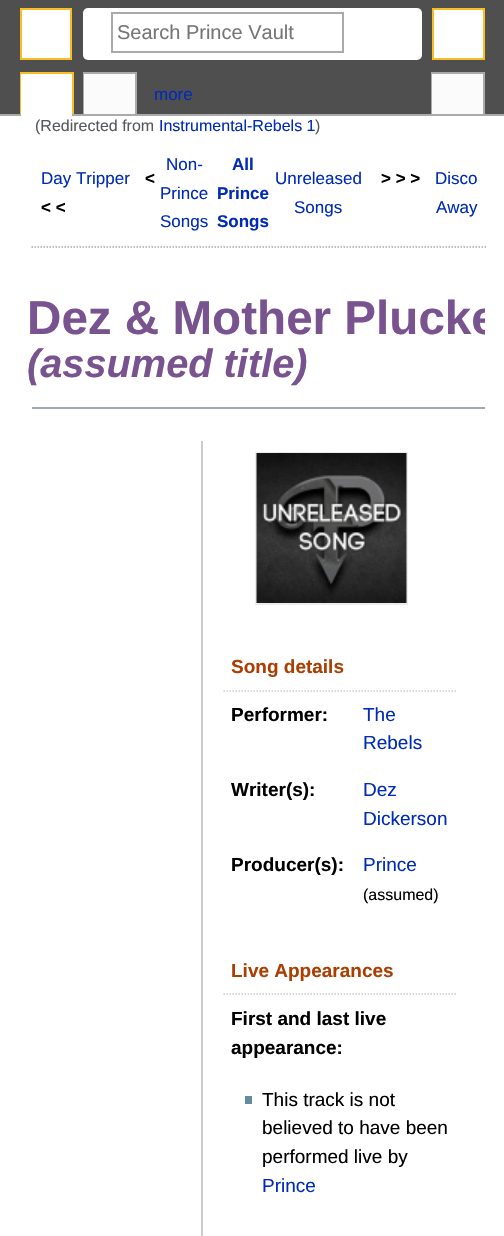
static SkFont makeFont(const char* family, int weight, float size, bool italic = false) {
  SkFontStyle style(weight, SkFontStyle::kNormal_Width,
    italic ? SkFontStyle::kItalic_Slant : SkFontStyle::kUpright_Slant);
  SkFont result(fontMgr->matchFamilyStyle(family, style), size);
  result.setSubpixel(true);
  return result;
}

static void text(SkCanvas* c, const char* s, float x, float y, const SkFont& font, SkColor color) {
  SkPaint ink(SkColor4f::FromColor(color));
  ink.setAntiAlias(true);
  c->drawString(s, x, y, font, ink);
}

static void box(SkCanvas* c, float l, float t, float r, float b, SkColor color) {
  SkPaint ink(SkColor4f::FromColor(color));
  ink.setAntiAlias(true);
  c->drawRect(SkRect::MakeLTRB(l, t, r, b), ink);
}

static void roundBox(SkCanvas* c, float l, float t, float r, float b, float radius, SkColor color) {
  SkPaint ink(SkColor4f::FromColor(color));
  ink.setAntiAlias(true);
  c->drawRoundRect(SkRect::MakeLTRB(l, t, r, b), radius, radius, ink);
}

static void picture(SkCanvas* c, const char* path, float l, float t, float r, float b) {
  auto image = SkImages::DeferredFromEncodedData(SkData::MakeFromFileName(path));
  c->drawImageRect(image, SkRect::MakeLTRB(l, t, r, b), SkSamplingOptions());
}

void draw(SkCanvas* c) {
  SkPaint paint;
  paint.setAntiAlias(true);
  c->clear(0xff4f4f4f);
  paint.setColor(0xffffffff);
  c->drawRect(SkRect::MakeLTRB(21, 9, 71, 59), paint);
  paint.setStyle(SkPaint::kStroke_Style);
  paint.setStrokeWidth(2);
  paint.setColor(0xfffabd23);
  c->drawRect(SkRect::MakeLTRB(21, 9, 71, 59), paint);
  roundBox(c, 83, 8, 422, 60, 5, 0xffffffff);
  paint.setColor(0xffaaaaaa);
  c->drawRect(SkRect::MakeLTRB(112, 13, 343, 52), paint);
  SkFont face1 = makeFont("Liberation Sans", 400, 20);
  text(c, "Search Prince Vault", 117, 39, face1, 0xff757575);
  paint.setStyle(SkPaint::kFill_Style);
  paint.setColor(0xffffffff);
  c->drawRect(SkRect::MakeLTRB(433, 9, 484, 59), paint);
  paint.setStyle(SkPaint::kStroke_Style);
  paint.setColor(0xfffabd23);
  c->drawRect(SkRect::MakeLTRB(433, 9, 484, 59), paint);
  box(c, 20, 72, 74, 74, 0xfffabd23);
  box(c, 72, 72, 74, 116, 0xfffabd23);
  box(c, 20, 72, 22, 116, 0xfffabd23);
  box(c, 83, 72, 137, 74, 0xffaaaaaa);
  box(c, 135, 72, 137, 116, 0xffaaaaaa);
  box(c, 83, 72, 85, 116, 0xffaaaaaa);
  box(c, 431, 72, 485, 74, 0xffaaaaaa);
  box(c, 483, 72, 485, 116, 0xffaaaaaa);
  box(c, 431, 72, 433, 116, 0xffaaaaaa);
  box(c, 0, 114, 504, 116, 0xffaaaaaa);
  box(c, 21, 74, 72, 116, 0xffffffff);
  box(c, 84, 74, 135, 114, 0xfffbfbfb);
  SkFont face2 = makeFont("Liberation Sans", 400, 17);
  text(c, "more", 154, 100, face2, 0xff002bb8);
  box(c, 432, 74, 483, 114, 0xfffbfbfb);
  box(c, 0, 116, 504, 1236, 0xffffffff);
  SkFont face3 = makeFont("Liberation Sans", 400, 16);
  text(c, "(Redirected from", 35, 131, face3, 0xff54595d);
  text(c, "Instrumental-Rebels 1", 159, 131, face3, 0xff002bb8);
  text(c, ")", 315, 131, face3, 0xff54595d);
  paint.setStrokeWidth(1.5f);
  paint.setColor(0xffaaaaaa);
  paint.setPathEffect(SkDashPathEffect::Make({{1.5f, 1.5f}}, 0));
  c->drawPath(SkPathBuilder().moveTo(31.5f, 247).lineTo(487.5f, 247).detach(), paint);
  paint.setPathEffect(nullptr);
  text(c, "Day Tripper", 41, 184, face2, 0xff002bb8);
  SkFont face4 = makeFont("Liberation Sans", 700, 17);
  text(c, "<", 145, 184, face4, 0xff000000);
  text(c, "< <", 41, 213, face4, 0xff000000);
  text(c, "Non-", 166, 170, face2, 0xff002bb8);
  text(c, "Prince", 160, 199, face2, 0xff002bb8);
  text(c, "Songs", 160, 227, face2, 0xff002bb8);
  text(c, "All", 232, 170, face4, 0xff002bb8);
  text(c, "Prince", 217, 199, face4, 0xff002bb8);
  text(c, "Songs", 217, 227, face4, 0xff002bb8);
  text(c, "Unreleased", 275, 184, face2, 0xff002bb8);
  text(c, "Songs", 294, 213, face2, 0xff002bb8);
  text(c, "> > >", 381, 184, face4, 0xff000000);
  text(c, "Disco", 435, 184, face2, 0xff002bb8);
  text(c, "Away", 436, 213, face2, 0xff002bb8);
  c->save();
  c->clipRect(SkRect::MakeLTRB(20, 116, 485, 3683));
  SkFont face5 = makeFont("Liberation Sans", 700, 47.6f);
  text(c, "Dez & Mother Plucke", 27, 334, face5, 0xff795290);
  c->restore();
  SkFont face6 = makeFont("Liberation Sans", 700, 39.75f, true);
  text(c, "(assumed title)", 27, 377, face6, 0xff795290);
  box(c, 32, 407, 485, 409, 0xffa2a9b1);
  box(c, 201, 441, 203, 1236, 0xffcccccc);
  paint.setStrokeWidth(2);
  paint.setColor(0xffeaecf0);
  c->drawRect(SkRect::MakeLTRB(256, 453, 407, 604), paint);
  picture(c, "img_01.png", 256, 453, 407, 603);
  paint.setStrokeWidth(1.5f);
  paint.setColor(0xffcccccc);
  paint.setPathEffect(SkDashPathEffect::Make({{1.5f, 1.5f}}, 0));
  c->drawPath(SkPathBuilder().moveTo(223.5f, 691).lineTo(456, 691).detach(), paint);
  paint.setPathEffect(nullptr);
  SkFont face7 = makeFont("Liberation Sans", 700, 19);
  text(c, "Song details", 231, 673, face7, 0xffab3e00);
  text(c, "Performer:", 231, 721, face7, 0xff000000);
  SkFont face8 = makeFont("Liberation Sans", 400, 19);
  text(c, "The", 363, 721, face8, 0xff002bb8);
  text(c, "Rebels", 363, 749, face8, 0xff002bb8);
  text(c, "Writer(s):", 231, 796, face7, 0xff000000);
  text(c, "Dez", 363, 796, face8, 0xff002bb8);
  text(c, "Dickerson", 363, 825, face8, 0xff002bb8);
  text(c, "Producer(s):", 231, 871, face7, 0xff000000);
  text(c, "Prince", 363, 871, face8, 0xff002bb8);
  text(c, "(assumed)", 363, 900, face3, 0xff000000);
  paint.setPathEffect(SkDashPathEffect::Make({{1.5f, 1.5f}}, 0));
  c->drawPath(SkPathBuilder().moveTo(223.5f, 994).lineTo(456, 994).detach(), paint);
  paint.setPathEffect(nullptr);
  text(c, "Live Appearances", 231, 977, face7, 0xffab3e00);
  text(c, "First and last live", 231, 1025, face7, 0xff000000);
  text(c, "appearance:", 231, 1054, face7, 0xff000000);
  box(c, 245, 1096, 252, 1104, 0xff638c9c);
  text(c, "This track is not", 262, 1106, face8, 0xff000000);
  text(c, "believed to have been", 262, 1134, face8, 0xff000000);
  text(c, "performed live by", 262, 1163, face8, 0xff000000);
  text(c, "Prince", 262, 1192, face8, 0xff002bb8);
}
